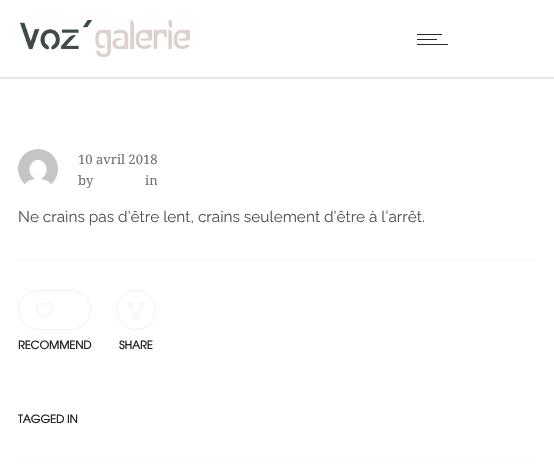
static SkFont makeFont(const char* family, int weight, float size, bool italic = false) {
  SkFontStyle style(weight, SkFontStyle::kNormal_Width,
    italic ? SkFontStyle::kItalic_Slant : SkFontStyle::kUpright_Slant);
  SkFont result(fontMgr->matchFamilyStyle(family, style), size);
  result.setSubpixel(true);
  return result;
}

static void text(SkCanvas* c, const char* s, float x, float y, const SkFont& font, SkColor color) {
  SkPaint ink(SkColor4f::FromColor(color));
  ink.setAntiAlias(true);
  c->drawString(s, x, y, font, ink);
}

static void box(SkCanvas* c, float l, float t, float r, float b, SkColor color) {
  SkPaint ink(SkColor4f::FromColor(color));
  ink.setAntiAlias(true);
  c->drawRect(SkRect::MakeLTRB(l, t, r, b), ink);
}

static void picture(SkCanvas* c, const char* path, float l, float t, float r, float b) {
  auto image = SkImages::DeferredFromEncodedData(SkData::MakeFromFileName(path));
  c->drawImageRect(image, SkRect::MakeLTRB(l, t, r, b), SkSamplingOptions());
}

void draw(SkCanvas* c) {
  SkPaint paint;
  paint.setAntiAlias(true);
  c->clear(0xffffffff);
  box(c, 0, 78, 554, 79, 0xffeae9ea);
  box(c, 0, 77, 554, 78, 0xffe6e6e6);
  picture(c, "img_01.png", 20, 20, 190, 57);
  box(c, 417, 34, 442, 35, 0xff28262b);
  box(c, 417, 39, 437, 40, 0xff28262b);
  box(c, 417, 44, 448, 45, 0xff28262b);
  picture(c, "img_02.png", 18, 149, 58, 185);
  SkFont face1 = makeFont("Droid Serif", 400, 13);
  text(c, "10 avril 2018", 78, 164, face1, 0xff727272);
  text(c, "by", 78, 185, face1, 0xff727272);
  text(c, "in", 145, 185, face1, 0xff727272);
  SkFont face2 = makeFont("Raleway", 400, 15.4f);
  text(c, "Ne crains pas d’être lent, crains seulement d’être à l’arrêt.", 18, 222, face2, 0xff565656);
  paint.setStyle(SkPaint::kStroke_Style);
  paint.setStrokeWidth(1);
  paint.setColor(0xfff4f1f1);
  paint.setPathEffect(SkDashPathEffect::Make({{1, 1}}, 0));
  c->drawPath(SkPathBuilder().moveTo(18, 259.5f).lineTo(537, 259.5f).detach(), paint);
  paint.setPathEffect(nullptr);
  paint.setPathEffect(SkDashPathEffect::Make({{1, 1}}, 0));
  c->drawPath(SkPathBuilder().moveTo(18, 458.5f).lineTo(537, 458.5f).detach(), paint);
  paint.setPathEffect(nullptr);
  c->drawRoundRect(SkRect::MakeLTRB(18.5f, 290.5f, 90.5f, 329.5f), 19.5f, 19.5f, paint);
  picture(c, "img_03.png", 36, 303, 54, 319);
  SkFont face3 = makeFont("TeX Gyre Adventor", 700, 11);
  text(c, "RECOMMEND", 18, 349, face3, 0xff28262b);
  c->drawCircle(136, 310, 19.5f, paint);
  picture(c, "img_04.png", 127, 302, 145, 320);
  text(c, "SHARE", 119, 349, face3, 0xff28262b);
  text(c, "TAGGED IN", 18, 423, face3, 0xff28262b);
}
